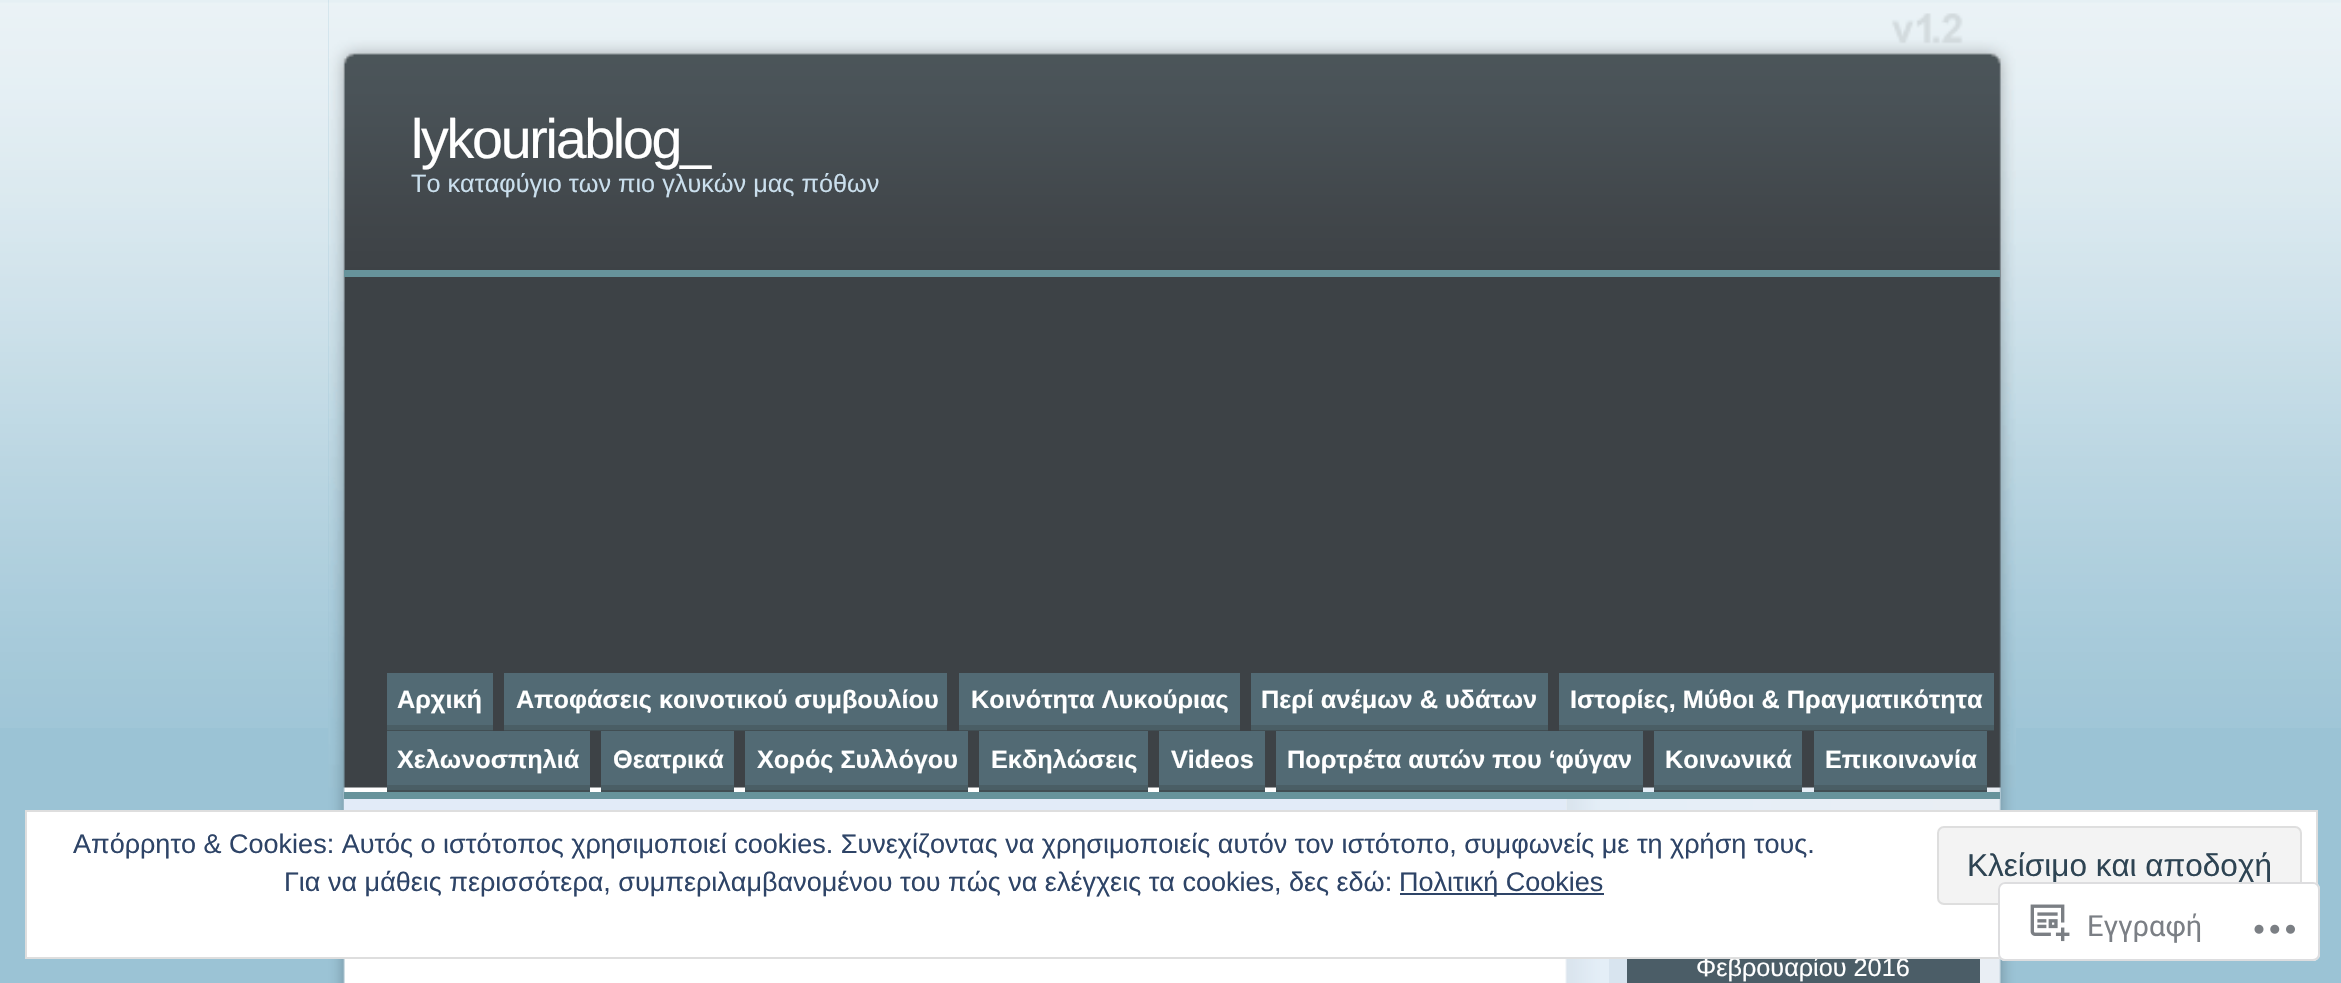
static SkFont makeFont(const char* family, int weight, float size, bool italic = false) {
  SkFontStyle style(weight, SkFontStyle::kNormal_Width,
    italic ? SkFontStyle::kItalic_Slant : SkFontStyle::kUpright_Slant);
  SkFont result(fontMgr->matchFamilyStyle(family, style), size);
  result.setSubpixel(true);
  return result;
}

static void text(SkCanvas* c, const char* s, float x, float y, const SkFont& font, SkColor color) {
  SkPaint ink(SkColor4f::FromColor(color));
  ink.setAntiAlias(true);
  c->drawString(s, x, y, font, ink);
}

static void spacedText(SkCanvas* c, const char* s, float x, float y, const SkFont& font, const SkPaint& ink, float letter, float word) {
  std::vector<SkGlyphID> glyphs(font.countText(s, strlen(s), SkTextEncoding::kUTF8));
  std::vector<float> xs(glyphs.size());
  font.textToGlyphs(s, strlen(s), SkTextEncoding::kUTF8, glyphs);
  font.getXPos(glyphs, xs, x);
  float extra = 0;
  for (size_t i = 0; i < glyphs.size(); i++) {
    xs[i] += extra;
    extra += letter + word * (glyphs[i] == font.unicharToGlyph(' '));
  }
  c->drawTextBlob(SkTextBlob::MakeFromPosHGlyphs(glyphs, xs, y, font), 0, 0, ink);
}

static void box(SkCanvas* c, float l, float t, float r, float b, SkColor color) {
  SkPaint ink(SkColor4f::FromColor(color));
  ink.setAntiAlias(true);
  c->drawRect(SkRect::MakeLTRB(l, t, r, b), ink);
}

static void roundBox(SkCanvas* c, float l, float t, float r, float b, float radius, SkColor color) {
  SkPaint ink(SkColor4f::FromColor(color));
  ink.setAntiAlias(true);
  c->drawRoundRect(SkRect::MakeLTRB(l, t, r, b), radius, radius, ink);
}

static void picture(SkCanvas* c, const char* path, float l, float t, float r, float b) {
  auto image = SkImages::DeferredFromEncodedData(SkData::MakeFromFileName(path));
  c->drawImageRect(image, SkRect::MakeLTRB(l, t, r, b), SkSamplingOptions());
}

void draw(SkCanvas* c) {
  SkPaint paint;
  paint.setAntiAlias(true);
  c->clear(0xff9bc3d5);
  picture(c, "img_01.png", 0, 0, 2341, 728);
  picture(c, "img_02.png", 328, 0, 2016, 983);
  picture(c, "img_03.png", 328, 0, 2016, 788);
  SkFont face1 = makeFont("Liberation Sans", 400, 55.5f);
  paint.setColor(0xffffffff);
  spacedText(c, "lykouriablog_", 411, 158, face1, paint, -2.25f, 0);
  SkFont face2 = makeFont("Liberation Sans", 400, 25.25f);
  text(c, "Το καταφύγιο των πιο γλυκών μας πόθων", 411, 192, face2, 0xffcadfed);
  box(c, 344, 270, 2000, 277, 0xff67939b);
  box(c, 344, 792, 2000, 799, 0xff67939b);
  box(c, 387, 730, 493, 731, 0xff414e53);
  box(c, 387, 673, 493, 725, 0xff526a74);
  box(c, 387, 725, 493, 730, 0xff4a5e65);
  SkFont face3 = makeFont("Liberation Sans", 700, 25.25f);
  text(c, "Αρχική", 397, 708, face3, 0xffffffff);
  box(c, 504, 730, 947, 731, 0xff414e53);
  box(c, 504, 673, 947, 725, 0xff526a74);
  box(c, 504, 725, 947, 730, 0xff4a5e65);
  text(c, "Αποφάσεις κοινοτικού συμβουλίου", 516, 708, face3, 0xffffffff);
  box(c, 959, 730, 1240, 731, 0xff414e53);
  box(c, 959, 673, 1240, 725, 0xff526a74);
  box(c, 959, 725, 1240, 730, 0xff4a5e65);
  text(c, "Κοινότητα Λυκούριας", 971, 708, face3, 0xffffffff);
  box(c, 1251, 730, 1548, 731, 0xff414e53);
  box(c, 1251, 673, 1548, 725, 0xff526a74);
  box(c, 1251, 725, 1548, 730, 0xff4a5e65);
  text(c, "Περί ανέμων & υδάτων", 1261, 708, face3, 0xffffffff);
  box(c, 1559, 730, 1994, 731, 0xff414e53);
  box(c, 1559, 673, 1994, 725, 0xff526a74);
  box(c, 1559, 725, 1994, 730, 0xff4a5e65);
  text(c, "Ιστορίες, Μύθοι & Πραγματικότητα", 1570, 708, face3, 0xffffffff);
  box(c, 387, 790, 590, 792, 0xff414e53);
  box(c, 387, 731, 590, 785, 0xff526a74);
  box(c, 387, 785, 590, 790, 0xff4a5e65);
  text(c, "Χελωνοσπηλιά", 397, 768, face3, 0xffffffff);
  box(c, 601, 790, 734, 792, 0xff414e53);
  box(c, 601, 731, 734, 785, 0xff526a74);
  box(c, 601, 785, 734, 790, 0xff4a5e65);
  text(c, "Θεατρικά", 613, 768, face3, 0xffffffff);
  box(c, 745, 790, 968, 792, 0xff414e53);
  box(c, 745, 731, 968, 785, 0xff526a74);
  box(c, 745, 785, 968, 790, 0xff4a5e65);
  text(c, "Χορός Συλλόγου", 757, 768, face3, 0xffffffff);
  box(c, 979, 790, 1148, 792, 0xff414e53);
  box(c, 979, 731, 1148, 785, 0xff526a74);
  box(c, 979, 785, 1148, 790, 0xff4a5e65);
  text(c, "Εκδηλώσεις", 991, 768, face3, 0xffffffff);
  box(c, 1159, 790, 1265, 792, 0xff414e53);
  box(c, 1159, 731, 1265, 785, 0xff526a74);
  box(c, 1159, 785, 1265, 790, 0xff4a5e65);
  text(c, "Videos", 1171, 768, face3, 0xffffffff);
  box(c, 1276, 790, 1643, 792, 0xff414e53);
  box(c, 1276, 731, 1643, 785, 0xff526a74);
  box(c, 1276, 785, 1643, 790, 0xff4a5e65);
  text(c, "Πορτρέτα αυτών που ‘φύγαν", 1287, 768, face3, 0xffffffff);
  box(c, 1654, 790, 1802, 792, 0xff414e53);
  box(c, 1654, 731, 1802, 785, 0xff526a74);
  box(c, 1654, 785, 1802, 790, 0xff4a5e65);
  text(c, "Κοινωνικά", 1665, 768, face3, 0xffffffff);
  box(c, 1814, 790, 1987, 792, 0xff414e53);
  box(c, 1814, 731, 1987, 785, 0xff526a74);
  box(c, 1814, 785, 1987, 790, 0xff4a5e65);
  text(c, "Επικοινωνία", 1825, 768, face3, 0xffffffff);
  box(c, 344, 799, 1566, 810, 0xffe2ebf8);
  picture(c, "img_04.png", 1609, 959, 1627, 983);
  box(c, 1627, 959, 1980, 983, 0xff4b5d67);
  text(c, "Φεβρουαρίου 2016", 1696, 976, face2, 0xffffffff);
  c->drawRect(SkRect::MakeLTRB(26, 811, 2317, 958), paint);
  paint.setStyle(SkPaint::kStroke_Style);
  paint.setStrokeWidth(2);
  paint.setColor(0xffdedede);
  c->drawRect(SkRect::MakeLTRB(26, 811, 2317, 958), paint);
  SkFont face4 = makeFont("Liberation Sans", 400, 27);
  text(c, "Απόρρητο & Cookies: Αυτός ο ιστότοπος χρησιμοποιεί cookies. Συνεχίζοντας να χρησιμοποιείς αυτόν τον ιστότοπο, συμφωνείς με τη χρήση τους.", 73, 853, face4, 0xff2e4467);
  text(c, "Για να μάθεις περισσότερα, συμπεριλαμβανομένου του πώς να ελέγχεις τα cookies, δες εδώ:", 284, 891, face4, 0xff2e4467);
  box(c, 1400, 893, 1604, 895, 0xff2e4467);
  text(c, "Πολιτική Cookies", 1399, 891, face4, 0xff2e4467);
  paint.setStyle(SkPaint::kFill_Style);
  paint.setColor(0xfff3f3f3);
  c->drawRoundRect(SkRect::MakeLTRB(1938, 827, 2301, 904), 6, 6, paint);
  paint.setStyle(SkPaint::kStroke_Style);
  paint.setColor(0xffdedede);
  c->drawRoundRect(SkRect::MakeLTRB(1938, 827, 2301, 904), 6, 6, paint);
  SkFont face5 = makeFont("Liberation Sans", 400, 31.5f);
  text(c, "Κλείσιμο και αποδοχή", 1967, 876, face5, 0xff2e4453);
  roundBox(c, 1998, 882, 2320, 961, 7, 0xfaffffff);
  paint.setColor(0xfadcdcde);
  c->drawRoundRect(SkRect::MakeLTRB(1999, 883, 2319, 960), 6, 6, paint);
  picture(c, "img_05.png", 2030, 904, 2070, 942);
  SkFont face6 = makeFont("Roboto", 400, 29);
  text(c, "Εγγραφή", 2087, 936, face6, 0xff7b7f85);
  picture(c, "img_06.png", 2254, 924, 2295, 934);
}
